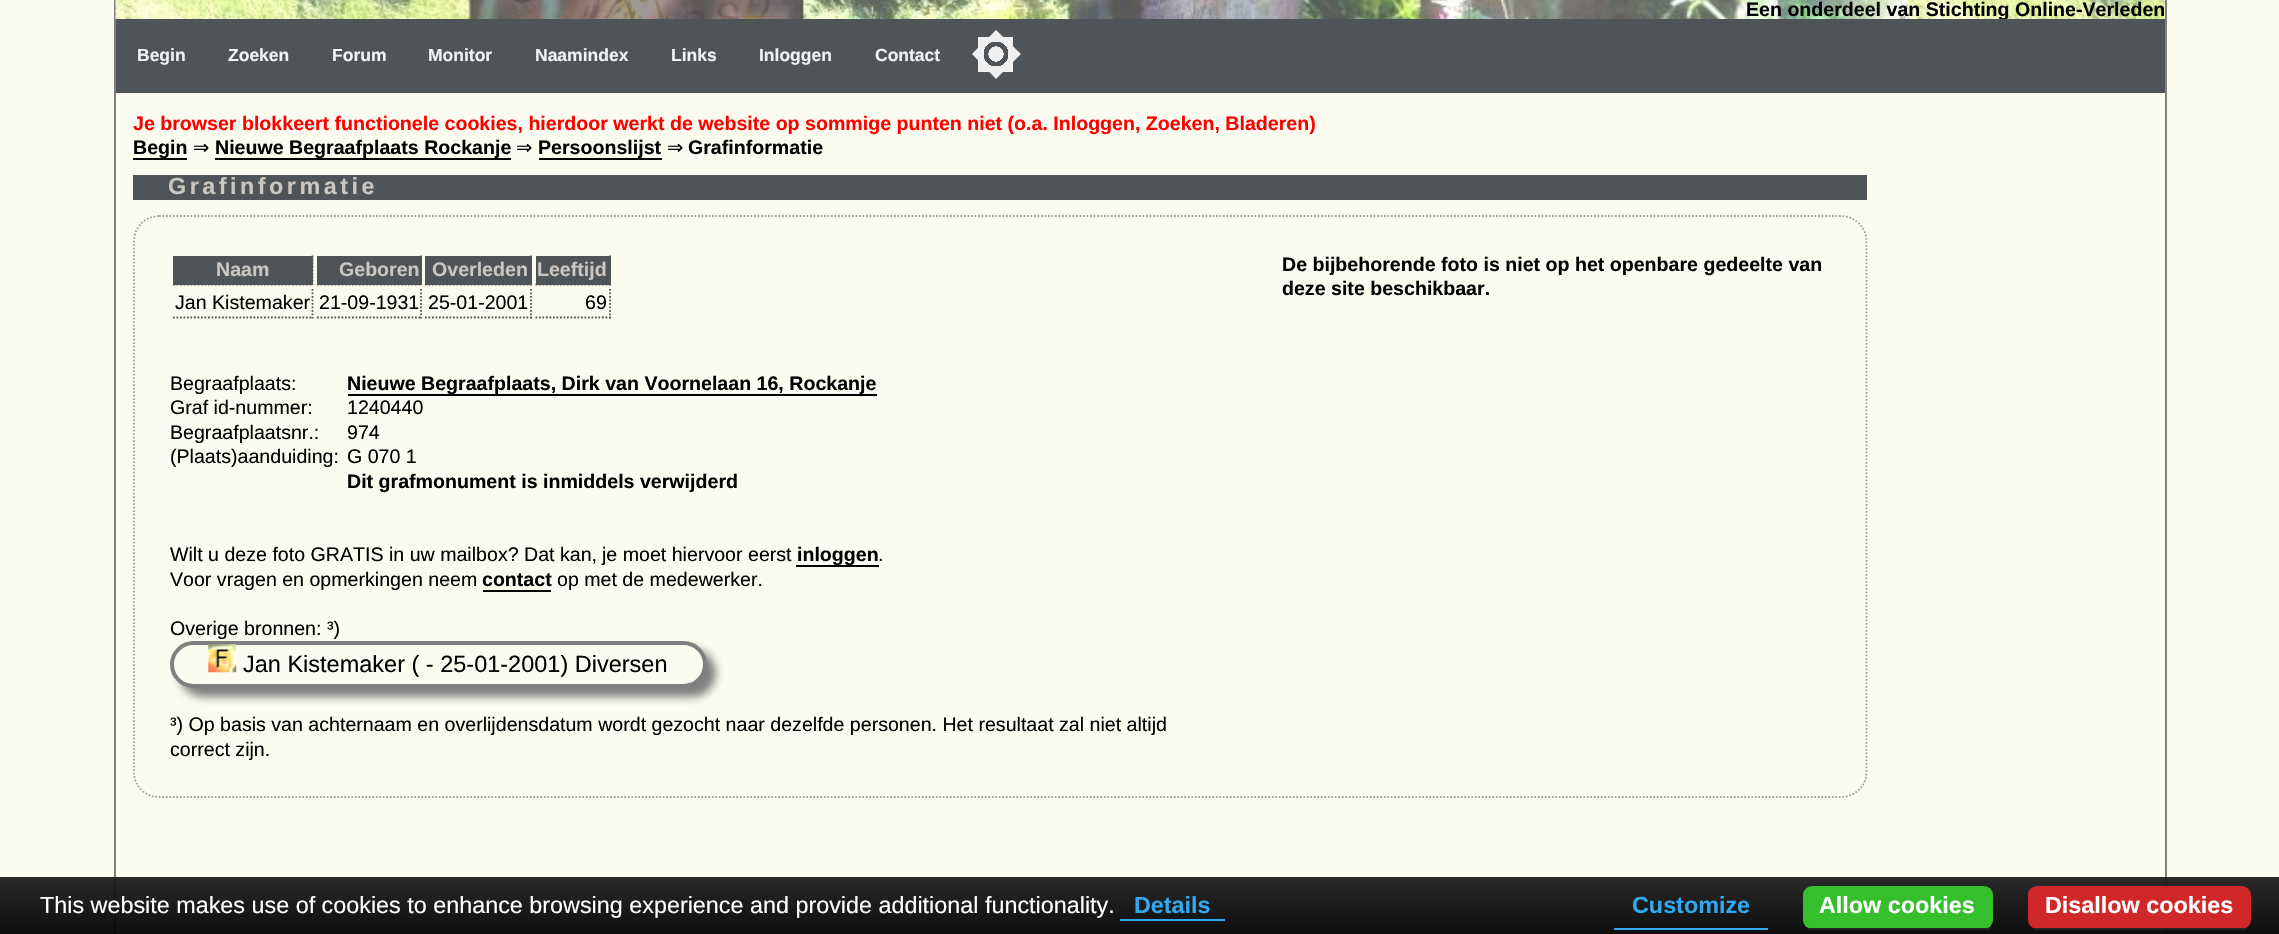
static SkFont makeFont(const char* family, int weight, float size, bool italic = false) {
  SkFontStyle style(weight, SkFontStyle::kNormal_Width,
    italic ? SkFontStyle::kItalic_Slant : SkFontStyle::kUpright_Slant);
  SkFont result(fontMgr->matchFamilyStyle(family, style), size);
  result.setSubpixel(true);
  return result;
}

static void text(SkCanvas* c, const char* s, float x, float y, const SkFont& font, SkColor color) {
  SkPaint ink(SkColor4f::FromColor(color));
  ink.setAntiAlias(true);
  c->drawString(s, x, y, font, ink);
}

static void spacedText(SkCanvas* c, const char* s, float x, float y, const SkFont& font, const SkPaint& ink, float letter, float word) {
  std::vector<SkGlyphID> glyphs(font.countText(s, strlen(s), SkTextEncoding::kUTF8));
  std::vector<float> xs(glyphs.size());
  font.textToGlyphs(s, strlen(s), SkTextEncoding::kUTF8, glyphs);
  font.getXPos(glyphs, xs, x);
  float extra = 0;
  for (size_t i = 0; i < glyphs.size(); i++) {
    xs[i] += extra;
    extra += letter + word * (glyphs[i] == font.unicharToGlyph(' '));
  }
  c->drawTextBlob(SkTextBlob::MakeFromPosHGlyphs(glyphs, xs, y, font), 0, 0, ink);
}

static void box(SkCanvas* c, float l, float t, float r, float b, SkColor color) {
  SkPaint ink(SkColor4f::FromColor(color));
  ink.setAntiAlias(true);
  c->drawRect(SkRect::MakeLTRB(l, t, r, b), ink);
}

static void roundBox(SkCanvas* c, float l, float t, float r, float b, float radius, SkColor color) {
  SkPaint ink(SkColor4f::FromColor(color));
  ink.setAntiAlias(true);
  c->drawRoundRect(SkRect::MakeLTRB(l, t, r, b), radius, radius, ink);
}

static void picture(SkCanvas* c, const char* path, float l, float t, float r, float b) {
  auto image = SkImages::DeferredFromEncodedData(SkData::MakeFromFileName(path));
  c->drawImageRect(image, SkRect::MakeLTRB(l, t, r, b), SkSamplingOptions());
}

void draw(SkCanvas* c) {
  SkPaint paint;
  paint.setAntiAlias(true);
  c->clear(0xfffcfbf0);
  box(c, 2165, 0, 2167, 934, 0xff808080);
  box(c, 114, 0, 116, 934, 0xff808080);
  picture(c, "img_01.png", 115, 0, 2165, 20);
  SkFont face1 = makeFont("Liberation Sans", 700, 19.6f);
  text(c, "Een onderdeel van Stichting Online-Verleden", 1746, 16, face1, 0xff000000);
  box(c, 116, 19, 2165, 93, 0xff4e5457);
  SkFont face2 = makeFont("Liberation Sans", 700, 17.5f);
  text(c, "Begin", 137, 61, face2, 0xfff2f2f2);
  text(c, "Zoeken", 228, 61, face2, 0xfff2f2f2);
  text(c, "Forum", 332, 61, face2, 0xfff2f2f2);
  text(c, "Monitor", 428, 61, face2, 0xfff2f2f2);
  text(c, "Naamindex", 535, 61, face2, 0xfff2f2f2);
  text(c, "Links", 671, 61, face2, 0xfff2f2f2);
  text(c, "Inloggen", 759, 61, face2, 0xfff2f2f2);
  text(c, "Contact", 875, 61, face2, 0xfff2f2f2);
  {
    const SkColor colors[] = {0xff4e5457, 0xff4e5457, 0xfff0f0f0};
    const float stops[] = {0, 0.5f, 0.5f};
    paint.setShader(SkGradientShader::MakeRadial({996, 54}, 25, colors, stops, 3, SkTileMode::kClamp));
    paint.setAlpha(255);
  }
  c->drawRect(SkRect::MakeLTRB(978, 37, 1013, 72), paint);
  {
    const SkColor colors[] = {0xfff0f0f0, 0x00f0f0f0, 0x00f0f0f0, 0xfff0f0f0};
    const float stops[] = {0.3f, 0.31f, 0.5f, 0.5f};
    paint.setShader(SkGradientShader::MakeRadial({996, 54}, 25, colors, stops, 4, SkTileMode::kClamp));
    paint.setAlpha(255);
  }
  c->drawPath(SkPathBuilder().moveTo(996, 79).lineTo(972, 54).lineTo(996, 30).lineTo(1021, 54).close().detach(), paint);
  paint.setShader(nullptr);
  paint.setColor(0xff4e5457);
  c->drawPath(SkPathBuilder().moveTo(988.5f, 53.5f).lineTo(986, 52.5f).lineTo(987.5f, 52).close().detach(), paint);
  text(c, "Je browser blokkeert functionele cookies, hierdoor werkt de website op sommige punten niet (o.a. Inloggen, Zoeken, Bladeren)", 133, 130, face1, 0xffff0000);
  box(c, 133, 158, 187, 160, 0xff000000);
  text(c, "Begin", 133, 154, face1, 0xff000000);
  SkFont face3 = makeFont("DejaVu Sans", 400, 19.6f);
  text(c, "⇒", 193, 154, face3, 0xff000000);
  box(c, 215, 158, 511, 160, 0xff000000);
  text(c, "Nieuwe Begraafplaats Rockanje", 215, 154, face1, 0xff000000);
  text(c, "⇒", 516, 154, face3, 0xff000000);
  box(c, 539, 158, 662, 160, 0xff000000);
  text(c, "Persoonslijst", 538, 154, face1, 0xff000000);
  text(c, "⇒", 667, 154, face3, 0xff000000);
  text(c, "Grafinformatie", 688, 154, face1, 0xff000000);
  box(c, 133, 175, 1867, 200, 0xff4e5457);
  SkFont face4 = makeFont("Liberation Sans", 700, 23.35f);
  paint.setColor(0xffcbc7c0);
  spacedText(c, "Grafinformatie", 168, 194, face4, paint, 3.5f, 0);
  paint.setStyle(SkPaint::kStroke_Style);
  paint.setStrokeWidth(1.8f);
  paint.setColor(0xffa0a0a0);
  paint.setPathEffect(SkDashPathEffect::Make({{1.75f, 1.75f}}, 0));
  c->drawPath(SkPathBuilder().moveTo(159, 216).lineTo(1841, 216).cubicTo(1855, 216, 1866.5f, 227.5f, 1866.5f, 241.5f).lineTo(1866.5f, 772).cubicTo(1866.5f, 786, 1855, 797, 1841, 797).lineTo(159, 797).cubicTo(145, 797, 134, 786, 134, 772).lineTo(134, 241.5f).cubicTo(134, 227.5f, 145, 216, 159, 216).close().detach(), paint);
  paint.setPathEffect(nullptr);
  box(c, 173, 256, 313, 285, 0xff4e5457);
  paint.setColor(0xff4e5457);
  paint.setPathEffect(SkDashPathEffect::Make({{1.75f, 1.75f}}, 0));
  c->drawPath(SkPathBuilder().moveTo(312.5f, 255.5f).lineTo(312.5f, 285).detach(), paint);
  paint.setPathEffect(nullptr);
  paint.setPathEffect(SkDashPathEffect::Make({{1.75f, 1.75f}}, 0));
  c->drawPath(SkPathBuilder().moveTo(173, 284.5f).lineTo(313, 284.5f).detach(), paint);
  paint.setPathEffect(nullptr);
  text(c, "Naam", 216, 276, face1, 0xffcbc7c0);
  box(c, 317, 256, 422, 285, 0xff4e5457);
  paint.setPathEffect(SkDashPathEffect::Make({{1.75f, 1.75f}}, 0));
  c->drawPath(SkPathBuilder().moveTo(421, 255.5f).lineTo(421, 285).detach(), paint);
  paint.setPathEffect(nullptr);
  paint.setPathEffect(SkDashPathEffect::Make({{1.75f, 1.75f}}, 0));
  c->drawPath(SkPathBuilder().moveTo(317, 284.5f).lineTo(422, 284.5f).detach(), paint);
  paint.setPathEffect(nullptr);
  text(c, "Geboren", 339, 276, face1, 0xffcbc7c0);
  box(c, 425, 256, 532, 285, 0xff4e5457);
  paint.setPathEffect(SkDashPathEffect::Make({{1.75f, 1.75f}}, 0));
  c->drawPath(SkPathBuilder().moveTo(531, 255.5f).lineTo(531, 285).detach(), paint);
  paint.setPathEffect(nullptr);
  paint.setPathEffect(SkDashPathEffect::Make({{1.75f, 1.75f}}, 0));
  c->drawPath(SkPathBuilder().moveTo(425, 284.5f).lineTo(532, 284.5f).detach(), paint);
  paint.setPathEffect(nullptr);
  text(c, "Overleden", 432, 276, face1, 0xffcbc7c0);
  box(c, 536, 256, 611, 285, 0xff4e5457);
  paint.setPathEffect(SkDashPathEffect::Make({{1.75f, 1.75f}}, 0));
  c->drawPath(SkPathBuilder().moveTo(610, 255.5f).lineTo(610, 285).detach(), paint);
  paint.setPathEffect(nullptr);
  paint.setPathEffect(SkDashPathEffect::Make({{1.75f, 1.75f}}, 0));
  c->drawPath(SkPathBuilder().moveTo(535.5f, 284.5f).lineTo(611, 284.5f).detach(), paint);
  paint.setPathEffect(nullptr);
  text(c, "Leeftijd", 537, 276, face1, 0xffcbc7c0);
  paint.setPathEffect(SkDashPathEffect::Make({{1.75f, 1.75f}}, 0));
  c->drawPath(SkPathBuilder().moveTo(312.5f, 289).lineTo(312.5f, 318.5f).detach(), paint);
  paint.setPathEffect(nullptr);
  paint.setPathEffect(SkDashPathEffect::Make({{1.75f, 1.75f}}, 0));
  c->drawPath(SkPathBuilder().moveTo(173, 317.5f).lineTo(313, 317.5f).detach(), paint);
  paint.setPathEffect(nullptr);
  SkFont face5 = makeFont("Liberation Sans", 400, 19.6f);
  text(c, "Jan Kistemaker", 175, 309, face5, 0xff000000);
  paint.setPathEffect(SkDashPathEffect::Make({{1.75f, 1.75f}}, 0));
  c->drawPath(SkPathBuilder().moveTo(421, 289).lineTo(421, 318.5f).detach(), paint);
  paint.setPathEffect(nullptr);
  paint.setPathEffect(SkDashPathEffect::Make({{1.75f, 1.75f}}, 0));
  c->drawPath(SkPathBuilder().moveTo(317, 317.5f).lineTo(422, 317.5f).detach(), paint);
  paint.setPathEffect(nullptr);
  text(c, "21-09-1931", 319, 309, face5, 0xff000000);
  paint.setPathEffect(SkDashPathEffect::Make({{1.75f, 1.75f}}, 0));
  c->drawPath(SkPathBuilder().moveTo(531, 289).lineTo(531, 318.5f).detach(), paint);
  paint.setPathEffect(nullptr);
  paint.setPathEffect(SkDashPathEffect::Make({{1.75f, 1.75f}}, 0));
  c->drawPath(SkPathBuilder().moveTo(425, 317.5f).lineTo(532, 317.5f).detach(), paint);
  paint.setPathEffect(nullptr);
  text(c, "25-01-2001", 428, 309, face5, 0xff000000);
  paint.setPathEffect(SkDashPathEffect::Make({{1.75f, 1.75f}}, 0));
  c->drawPath(SkPathBuilder().moveTo(610, 289).lineTo(610, 318.5f).detach(), paint);
  paint.setPathEffect(nullptr);
  paint.setPathEffect(SkDashPathEffect::Make({{1.75f, 1.75f}}, 0));
  c->drawPath(SkPathBuilder().moveTo(535.5f, 317.5f).lineTo(611, 317.5f).detach(), paint);
  paint.setPathEffect(nullptr);
  text(c, "69", 585, 309, face5, 0xff000000);
  text(c, "Begraafplaats:", 170, 390, face5, 0xff000000);
  box(c, 348, 394, 877, 396, 0xff000000);
  text(c, "Nieuwe Begraafplaats, Dirk van Voornelaan 16, Rockanje", 347, 390, face1, 0xff000000);
  text(c, "Graf id-nummer:", 170, 414, face5, 0xff000000);
  text(c, "1240440", 347, 414, face5, 0xff000000);
  text(c, "Begraafplaatsnr.:", 170, 439, face5, 0xff000000);
  text(c, "974", 347, 439, face5, 0xff000000);
  text(c, "(Plaats)aanduiding:", 170, 463, face5, 0xff000000);
  text(c, "G 070 1", 347, 463, face5, 0xff000000);
  text(c, "Dit grafmonument is inmiddels verwijderd", 347, 488, face1, 0xff000000);
  text(c, "Wilt u deze foto GRATIS in uw mailbox? Dat kan,", 170, 561, face5, 0xff000000);
  text(c, "je moet hiervoor eerst", 602, 561, face5, 0xff000000);
  box(c, 796, 565, 879, 567, 0xff000000);
  text(c, "inloggen", 797, 561, face1, 0xff000000);
  text(c, ".", 878, 561, face5, 0xff000000);
  text(c, "Voor vragen en opmerkingen neem", 170, 586, face5, 0xff000000);
  text(c, "contact", 482, 586, face1, 0xff000000);
  box(c, 483, 590, 551, 592, 0xff000000);
  text(c, "op met de medewerker.", 557, 586, face5, 0xff000000);
  paint.setStyle(SkPaint::kFill_Style);
  paint.setColor(0xff808080);
  paint.setMaskFilter(SkMaskFilter::MakeBlur(kNormal_SkBlurStyle, 4.5f));
  c->drawRoundRect(SkRect::MakeLTRB(179, 649, 716, 697), 24, 24, paint);
  paint.setMaskFilter(nullptr);
  text(c, "Overige bronnen: ³)", 170, 635, face5, 0xff000000);
  paint.setColor(0xfffcfbf0);
  c->drawRoundRect(SkRect::MakeLTRB(172, 643, 705, 686), 21.5f, 21.5f, paint);
  paint.setStyle(SkPaint::kStroke_Style);
  paint.setStrokeWidth(4);
  paint.setColor(0xff808080);
  c->drawRoundRect(SkRect::MakeLTRB(172, 643, 705, 686), 21.5f, 21.5f, paint);
  picture(c, "img_02.png", 208, 644, 237, 673);
  SkFont face6 = makeFont("Liberation Sans", 400, 23.5f);
  text(c, "Jan Kistemaker ( - 25-01-2001) Diversen", 243, 672, face6, 0xff000000);
  text(c, "³) Op basis van achternaam en overlijdensdatum wordt gezocht naar dezelfde personen. Het resultaat zal niet altijd", 170, 731, face5, 0xff000000);
  text(c, "correct zijn.", 170, 756, face5, 0xff000000);
  text(c, "De bijbehorende foto is niet op het openbare gedeelte van", 1282, 271, face1, 0xff000000);
  text(c, "deze site beschikbaar.", 1282, 295, face1, 0xff000000);
  paint.setStyle(SkPaint::kFill_Style);
  {
    const SkColor colors[] = {0xf21e1e1e, 0xf2000000};
    const float stops[] = {0, 1};
    const SkPoint ends[] = {{1145, 877}, {1145, 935}};
    paint.setShader(SkGradientShader::MakeLinear(ends, colors, stops, 2, SkTileMode::kClamp));
    paint.setAlpha(255);
  }
  c->drawRect(SkRect::MakeLTRB(0, 877, 2279, 934), paint);
  SkFont face7 = makeFont("Liberation Sans", 400, 23.35f);
  text(c, "This website makes use of cookies to enhance browsing experience and provide additional functionality.", 40, 913, face7, 0xffffffff);
  text(c, "Details", 1134, 913, face4, 0xff31a8f0);
  box(c, 1120, 919, 1225, 921, 0xff31a8f0);
  box(c, 1614, 928, 1768, 930, 0xff31a8f0);
  text(c, "Customize", 1632, 913, face4, 0xff31a8f0);
  roundBox(c, 1803, 886, 1993, 929, 9, 0xff36bf2d);
  box(c, 1808, 928, 1990, 930, 0xff222222);
  text(c, "Allow cookies", 1819, 913, face4, 0xffffffff);
  roundBox(c, 2028, 886, 2251, 929, 9, 0xffd02828);
  box(c, 2034, 928, 2247, 930, 0xff222222);
  text(c, "Disallow cookies", 2045, 913, face4, 0xffffffff);
}
